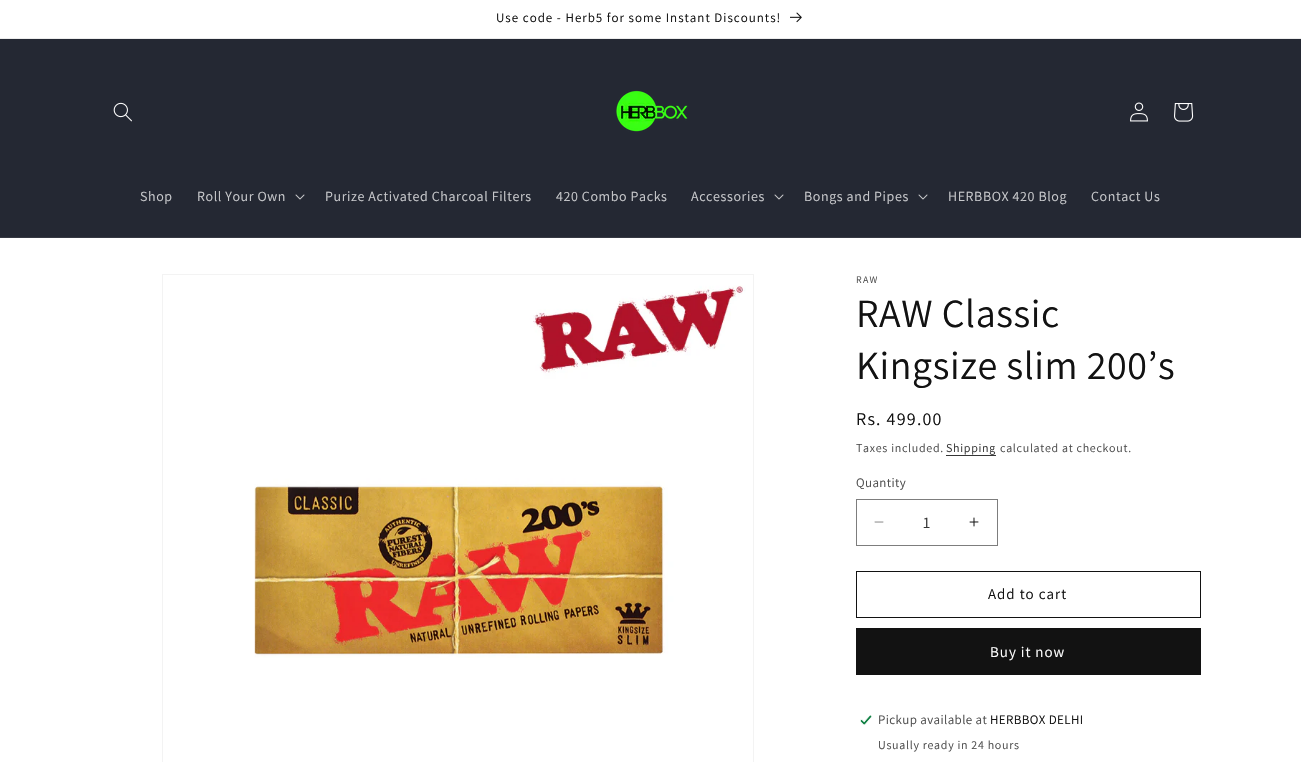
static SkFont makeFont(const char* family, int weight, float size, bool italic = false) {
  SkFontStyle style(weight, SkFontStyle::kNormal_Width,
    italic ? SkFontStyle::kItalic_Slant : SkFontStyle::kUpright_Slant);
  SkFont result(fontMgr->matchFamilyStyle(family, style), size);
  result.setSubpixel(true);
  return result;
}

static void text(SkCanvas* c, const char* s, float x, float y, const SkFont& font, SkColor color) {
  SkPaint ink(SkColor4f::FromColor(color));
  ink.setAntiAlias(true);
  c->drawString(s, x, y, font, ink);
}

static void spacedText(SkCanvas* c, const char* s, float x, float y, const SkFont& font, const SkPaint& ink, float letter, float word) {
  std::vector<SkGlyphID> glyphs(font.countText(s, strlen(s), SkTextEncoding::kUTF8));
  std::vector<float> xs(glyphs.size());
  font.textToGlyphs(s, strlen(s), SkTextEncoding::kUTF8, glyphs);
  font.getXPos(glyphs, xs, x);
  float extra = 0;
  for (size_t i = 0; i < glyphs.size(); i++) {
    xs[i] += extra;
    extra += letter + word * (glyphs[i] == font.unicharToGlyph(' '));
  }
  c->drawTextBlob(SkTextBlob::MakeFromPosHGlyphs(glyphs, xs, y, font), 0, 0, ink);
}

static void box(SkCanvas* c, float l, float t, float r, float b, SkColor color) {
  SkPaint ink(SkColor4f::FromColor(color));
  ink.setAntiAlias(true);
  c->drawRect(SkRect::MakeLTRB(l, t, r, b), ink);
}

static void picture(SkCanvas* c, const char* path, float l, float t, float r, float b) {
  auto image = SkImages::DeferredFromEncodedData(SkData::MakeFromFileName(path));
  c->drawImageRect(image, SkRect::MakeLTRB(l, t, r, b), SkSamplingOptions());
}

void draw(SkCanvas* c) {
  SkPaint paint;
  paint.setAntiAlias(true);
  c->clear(0xffffffff);
  box(c, 0, 38, 1301, 39, 0xffececec);
  SkFont face1 = makeFont("Assistant", 400, 13);
  paint.setColor(0xff121212);
  spacedText(c, "Use code - Herb5 for some Instant Discounts!", 496, 22, face1, paint, 1, 0);
  picture(c, "img_01.png", 790, 12, 802, 23);
  box(c, 0, 39, 1301, 237, 0xff242833);
  box(c, 0, 237, 1301, 238, 0xff363943);
  picture(c, "img_02.png", 113, 102, 132, 122);
  picture(c, "img_03.png", 616, 90, 688, 132);
  picture(c, "img_04.png", 1130, 102, 1148, 122);
  picture(c, "img_05.png", 1174, 103, 1194, 122);
  SkFont face2 = makeFont("Assistant", 400, 14);
  paint.setColor(0xffc8c9cc);
  spacedText(c, "Shop", 140, 201, face2, paint, 0.6f, 0);
  spacedText(c, "Roll Your Own", 197, 201, face2, paint, 0.6f, 0);
  picture(c, "img_06.png", 295, 194, 305, 200);
  spacedText(c, "Purize Activated Charcoal Filters", 325, 201, face2, paint, 0.6f, 0);
  spacedText(c, "420 Combo Packs", 556, 201, face2, paint, 0.6f, 0);
  spacedText(c, "Accessories", 691, 201, face2, paint, 0.6f, 0);
  picture(c, "img_06.png", 774, 194, 784, 200);
  spacedText(c, "Bongs and Pipes", 804, 201, face2, paint, 0.6f, 0);
  picture(c, "img_06.png", 918, 194, 928, 200);
  spacedText(c, "HERBBOX 420 Blog", 948, 201, face2, paint, 0.6f, 0);
  spacedText(c, "Contact Us", 1091, 201, face2, paint, 0.6f, 0);
  paint.setStyle(SkPaint::kStroke_Style);
  paint.setStrokeWidth(1);
  paint.setColor(0xfff3f3f3);
  c->drawRect(SkRect::MakeLTRB(162.5f, 274.5f, 753.5f, 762.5f), paint);
  picture(c, "img_07.png", 254, 285, 746, 658);
  SkFont face3 = makeFont("Assistant", 400, 10);
  paint.setStyle(SkPaint::kFill_Style);
  paint.setColor(0xff4d4d4d);
  spacedText(c, "RAW", 856, 283, face3, paint, 1.25f, 0);
  SkFont face4 = makeFont("Assistant", 400, 40);
  paint.setColor(0xff121212);
  spacedText(c, "RAW Classic", 856, 327, face4, paint, 0.6f, 0);
  spacedText(c, "Kingsize slim 200’s", 856, 379, face4, paint, 0.6f, 0);
  SkFont face5 = makeFont("Assistant", 400, 18);
  spacedText(c, "Rs. 499.00", 856, 425, face5, paint, 1.25f, 0);
  SkFont face6 = makeFont("Assistant", 400, 12);
  paint.setColor(0xff4d4d4d);
  spacedText(c, "Taxes included.", 856, 452, face6, paint, 0.7f, 0);
  paint.setColor(0xff363636);
  spacedText(c, "Shipping", 946, 452, face6, paint, 0.7f, 0);
  box(c, 946, 455, 996, 456, 0xff363636);
  paint.setColor(0xff4d4d4d);
  spacedText(c, "calculated at checkout.", 1000, 452, face6, paint, 0.7f, 0);
  spacedText(c, "Quantity", 856, 487, face1, paint, 0.4f, 0);
  picture(c, "img_08.png", 874, 521, 884, 523);
  picture(c, "img_09.png", 969, 517, 979, 527);
  paint.setStyle(SkPaint::kStroke_Style);
  paint.setColor(0xff7d7d7d);
  c->drawRect(SkRect::MakeLTRB(856.5f, 499.5f, 997.5f, 545.5f), paint);
  SkFont face7 = makeFont("Assistant", 400, 16);
  text(c, "1", 923, 528, face7, 0xff363636);
  paint.setColor(0xff121212);
  c->drawRect(SkRect::MakeLTRB(856.5f, 571.5f, 1200.5f, 617.5f), paint);
  SkFont face8 = makeFont("Assistant", 400, 15);
  paint.setStyle(SkPaint::kFill_Style);
  spacedText(c, "Add to cart", 988, 599, face8, paint, 1, 0);
  box(c, 856, 628, 1201, 675, 0xff121212);
  paint.setColor(0xffffffff);
  spacedText(c, "Buy it now", 990, 657, face8, paint, 1, 0);
  picture(c, "img_10.png", 860, 715, 872, 725);
  paint.setColor(0xff4d4d4d);
  spacedText(c, "Pickup available at", 878, 724, face1, paint, 0.4f, 0);
  paint.setColor(0xff121212);
  spacedText(c, "HERBBOX DELHI", 990, 724, face1, paint, 0.4f, 0);
  paint.setColor(0xff4d4d4d);
  spacedText(c, "Usually ready in 24 hours", 878, 749, face6, paint, 0.7f, 0);
}
